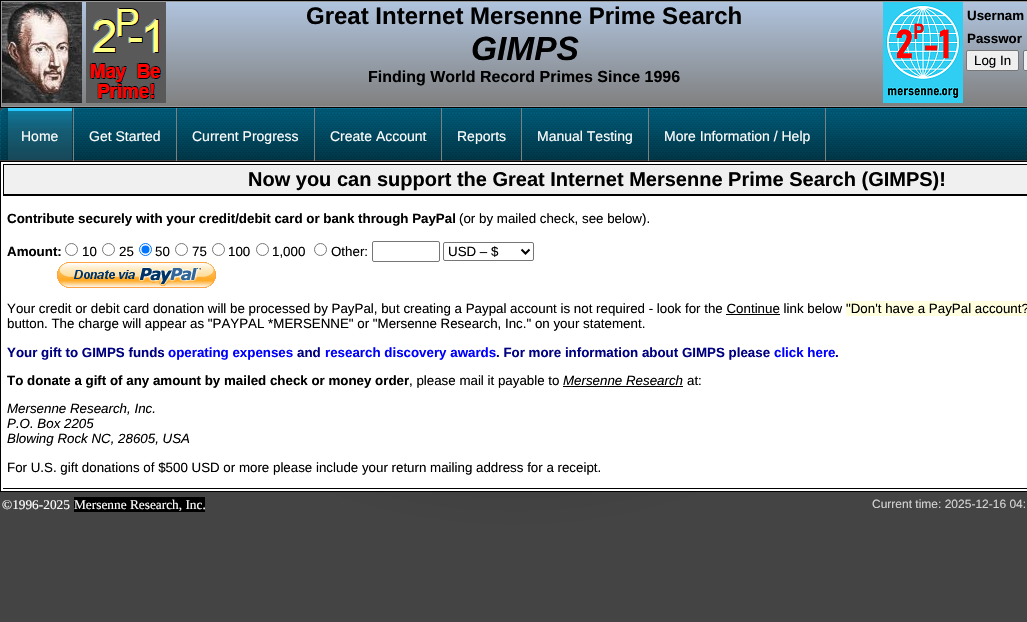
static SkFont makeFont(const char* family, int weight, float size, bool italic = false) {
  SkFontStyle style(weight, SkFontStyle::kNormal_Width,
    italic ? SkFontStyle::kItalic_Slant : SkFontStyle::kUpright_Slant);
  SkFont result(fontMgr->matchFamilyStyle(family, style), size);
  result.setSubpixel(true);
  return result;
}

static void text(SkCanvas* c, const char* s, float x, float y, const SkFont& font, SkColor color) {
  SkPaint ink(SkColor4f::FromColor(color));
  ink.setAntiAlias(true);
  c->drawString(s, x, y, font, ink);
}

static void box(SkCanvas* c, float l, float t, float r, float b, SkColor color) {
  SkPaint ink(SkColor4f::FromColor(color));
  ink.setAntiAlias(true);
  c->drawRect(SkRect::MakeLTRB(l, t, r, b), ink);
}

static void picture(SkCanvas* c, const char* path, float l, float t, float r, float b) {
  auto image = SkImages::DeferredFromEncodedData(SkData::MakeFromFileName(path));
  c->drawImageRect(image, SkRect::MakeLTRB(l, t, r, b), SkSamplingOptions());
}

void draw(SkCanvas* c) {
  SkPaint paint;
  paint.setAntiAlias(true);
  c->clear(0xffffffff);
  {
    const SkColor colors[] = {0xff333333, 0xff444444, 0xff444444};
    const float stops[] = {0, 0.5f, 1};
    SkMatrix m = SkMatrix::Translate(514, 311).preScale(726, 440);
    paint.setShader(SkGradientShader::MakeRadial({0, 0}, 1, colors, stops, 3, SkTileMode::kClamp, 0, &m));
    paint.setAlpha(255);
  }
  c->drawRect(SkRect::MakeLTRB(0, 108, 1027, 622), paint);
  paint.setStyle(SkPaint::kStroke_Style);
  paint.setStrokeWidth(1);
  paint.setShader(nullptr);
  paint.setColor(0xff000000);
  c->drawRect(SkRect::MakeLTRB(0.5f, 0.5f, 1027.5f, 107.5f), paint);
  paint.setStyle(SkPaint::kFill_Style);
  {
    const SkColor colors[] = {0xffb0c4de, 0xff808080};
    const float stops[] = {0, 1};
    const SkPoint ends[] = {{601, 2}, {601, 106}};
    paint.setShader(SkGradientShader::MakeLinear(ends, colors, stops, 2, SkTileMode::kClamp));
    paint.setAlpha(255);
  }
  c->drawRect(SkRect::MakeLTRB(2, 2, 1027, 106), paint);
  paint.setStyle(SkPaint::kStroke_Style);
  paint.setShader(nullptr);
  paint.setColor(0xff999999);
  c->drawRect(SkRect::MakeLTRB(1.5f, 1.5f, 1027.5f, 106.5f), paint);
  picture(c, "img_01.png", 2, 2, 82, 103);
  picture(c, "img_02.png", 86, 2, 166, 103);
  SkFont face1 = makeFont("Liberation Sans", 700, 24);
  text(c, "Great Internet Mersenne Prime Search", 306, 24, face1, 0xff000000);
  SkFont face2 = makeFont("Liberation Sans", 700, 33.5f, true);
  text(c, "GIMPS", 471, 60, face2, 0xff000000);
  SkFont face3 = makeFont("Liberation Sans", 700, 16);
  text(c, "Finding World Record Primes Since 1996", 368, 82, face3, 0xff000000);
  picture(c, "img_03.png", 883, 2, 963, 103);
  SkFont face4 = makeFont("Liberation Sans", 700, 13.33f);
  text(c, "Usernam", 967, 20, face4, 0xff000000);
  text(c, "Passwor", 967, 43, face4, 0xff000000);
  paint.setStyle(SkPaint::kFill_Style);
  paint.setColor(0xffefefef);
  c->drawRoundRect(SkRect::MakeLTRB(966.5f, 50.5f, 1018.5f, 70.5f), 1.5f, 1.5f, paint);
  paint.setStyle(SkPaint::kStroke_Style);
  paint.setColor(0xff767676);
  c->drawRoundRect(SkRect::MakeLTRB(966.5f, 50.5f, 1018.5f, 70.5f), 1.5f, 1.5f, paint);
  SkFont face5 = makeFont("Liberation Sans", 400, 13.33f);
  text(c, "Log In", 974, 65, face5, 0xff000000);
  paint.setStyle(SkPaint::kFill_Style);
  paint.setColor(0xffefefef);
  c->drawRoundRect(SkRect::MakeLTRB(1023.5f, 50.5f, 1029.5f, 70.5f), 1.5f, 1.5f, paint);
  paint.setStyle(SkPaint::kStroke_Style);
  paint.setColor(0xff767676);
  c->drawRoundRect(SkRect::MakeLTRB(1023.5f, 50.5f, 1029.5f, 70.5f), 1.5f, 1.5f, paint);
  picture(c, "img_04.png", 0, 108, 6, 160);
  picture(c, "img_05.png", 74, 108, 1027, 160);
  picture(c, "img_06.png", 6, 108, 11, 160);
  picture(c, "img_07.png", 11, 108, 73, 160);
  box(c, 176, 108, 177, 161, 0xff808080);
  SkFont face6 = makeFont("Liberation Sans", 400, 14);
  text(c, "Get Started", 89, 141, face6, 0xffffffff);
  box(c, 648, 108, 649, 161, 0xff808080);
  text(c, "Manual Testing", 537, 141, face6, 0xffffffff);
  box(c, 825, 108, 826, 161, 0xff808080);
  text(c, "More Information / Help", 664, 141, face6, 0xffffffff);
  box(c, 73, 108, 74, 161, 0xff808080);
  text(c, "Home", 21, 141, face6, 0xffffffff);
  box(c, 314, 108, 315, 161, 0xff808080);
  text(c, "Current Progress", 192, 141, face6, 0xffffffff);
  box(c, 441, 108, 442, 161, 0xff808080);
  text(c, "Create Account", 330, 141, face6, 0xffffffff);
  box(c, 521, 108, 522, 161, 0xff808080);
  text(c, "Reports", 457, 141, face6, 0xffffffff);
  paint.setStyle(SkPaint::kFill_Style);
  paint.setColor(0xffffffff);
  c->drawRect(SkRect::MakeLTRB(0.5f, 161.5f, 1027.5f, 491.5f), paint);
  paint.setStyle(SkPaint::kStroke_Style);
  paint.setColor(0xff000000);
  c->drawRect(SkRect::MakeLTRB(0.5f, 161.5f, 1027.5f, 491.5f), paint);
  paint.setStyle(SkPaint::kFill_Style);
  paint.setColor(0xfff0f0f0);
  c->drawRect(SkRect::MakeLTRB(3.5f, 164.5f, 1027.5f, 194.5f), paint);
  paint.setStyle(SkPaint::kStroke_Style);
  paint.setColor(0xff000000);
  c->drawRect(SkRect::MakeLTRB(3.5f, 164.5f, 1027.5f, 194.5f), paint);
  SkFont face7 = makeFont("Liberation Sans", 700, 20);
  text(c, "Now you can support the Great Internet Mersenne Prime Search (GIMPS)!", 248, 186, face7, 0xff000000);
  box(c, 3, 195, 1027, 196, 0xff000000);
  box(c, 3, 488, 1027, 489, 0xff000000);
  text(c, "Contribute securely with your credit/debit card or bank through PayPal", 7, 223, face4, 0xff000000);
  text(c, "(or by mailed check, see below).", 459, 223, face5, 0xff000000);
  text(c, "Amount:", 7, 256, face4, 0xff000000);
  paint.setColor(0xff767676);
  c->drawCircle(71.5f, 249.5f, 6, paint);
  text(c, "10", 82, 256, face5, 0xff000000);
  c->drawCircle(108.5f, 249.5f, 6, paint);
  text(c, "25", 119, 256, face5, 0xff000000);
  paint.setColor(0xff0075ff);
  c->drawCircle(145.5f, 249.5f, 6, paint);
  paint.setStyle(SkPaint::kFill_Style);
  c->drawCircle(145.5f, 249.5f, 4, paint);
  text(c, "50", 155, 256, face5, 0xff000000);
  paint.setStyle(SkPaint::kStroke_Style);
  paint.setColor(0xff767676);
  c->drawCircle(181.5f, 249.5f, 6, paint);
  text(c, "75", 192, 256, face5, 0xff000000);
  c->drawCircle(218.5f, 249.5f, 6, paint);
  text(c, "100", 228, 256, face5, 0xff000000);
  c->drawCircle(262.5f, 249.5f, 6, paint);
  text(c, "1,000", 272, 256, face5, 0xff000000);
  c->drawCircle(320.5f, 249.5f, 6, paint);
  text(c, "Other:", 331, 256, face5, 0xff000000);
  c->drawRoundRect(SkRect::MakeLTRB(372.5f, 241.5f, 439.5f, 261.5f), 1.5f, 1.5f, paint);
  c->drawRoundRect(SkRect::MakeLTRB(443.5f, 242.5f, 533.5f, 260.5f), 1.5f, 1.5f, paint);
  paint.setStrokeWidth(2);
  paint.setColor(0xff000000);
  c->drawPath(SkPathBuilder().moveTo(521.5f, 249.5f).lineTo(525.5f, 253.5f).lineTo(529.5f, 249.5f).detach(), paint);
  text(c, "USD – $", 448, 256, face5, 0xff000000);
  picture(c, "img_08.png", 57, 262, 216, 288);
  text(c, "Your credit or debit card donation will be processed by PayPal, but creating a Paypal account is not required - look for the Continue link below", 7, 313, face5, 0xff000000);
  box(c, 846, 301, 1027, 316, 0xffffffe0);
  text(c, "\"Don't have a PayPal account?", 846, 313, face5, 0xff000000);
  box(c, 726, 314, 780, 315, 0xff000000);
  text(c, "button. The charge will appear as \"PAYPAL *MERSENNE\" or \"Mersenne Research, Inc.\" on your statement.", 7, 328, face5, 0xff000000);
  text(c, "Your gift to GIMPS funds", 7, 357, face4, 0xff000080);
  text(c, "operating expenses", 168, 357, face4, 0xff0000ff);
  text(c, "and", 297, 357, face4, 0xff000080);
  text(c, "research discovery awards", 325, 357, face4, 0xff0000ff);
  text(c, ". For more information about GIMPS please", 496, 357, face4, 0xff000080);
  text(c, "click here", 774, 357, face4, 0xff0000ff);
  text(c, ".", 835, 357, face4, 0xff000080);
  text(c, "To donate a gift of any amount by mailed check or money order", 7, 385, face4, 0xff000000);
  text(c, ", please mail it payable to", 409, 385, face5, 0xff000000);
  SkFont face8 = makeFont("Liberation Sans", 400, 13.33f, true);
  text(c, "Mersenne Research", 563, 385, face8, 0xff000000);
  box(c, 563, 386, 683, 387, 0xff000000);
  text(c, "at:", 687, 385, face5, 0xff000000);
  text(c, "Mersenne Research, Inc.", 7, 413, face8, 0xff000000);
  text(c, "P.O. Box 2205", 7, 428, face8, 0xff000000);
  text(c, "Blowing Rock NC, 28605, USA", 7, 443, face8, 0xff000000);
  text(c, "For U.S. gift donations of $500 USD or more please include your return mailing address for a receipt.", 7, 472, face5, 0xff000000);
  SkFont face9 = makeFont("Liberation Serif", 400, 13.33f);
  text(c, "©1996-2025", 2, 509, face9, 0xffffffff);
  box(c, 74, 497, 205, 512, 0xff000000);
  text(c, "Mersenne Research, Inc.", 74, 509, face9, 0xffffffff);
  SkFont face10 = makeFont("Liberation Sans", 400, 12);
  text(c, "Current time: 2025-12-16 04:", 872, 508, face10, 0xffd3d3d3);
}
